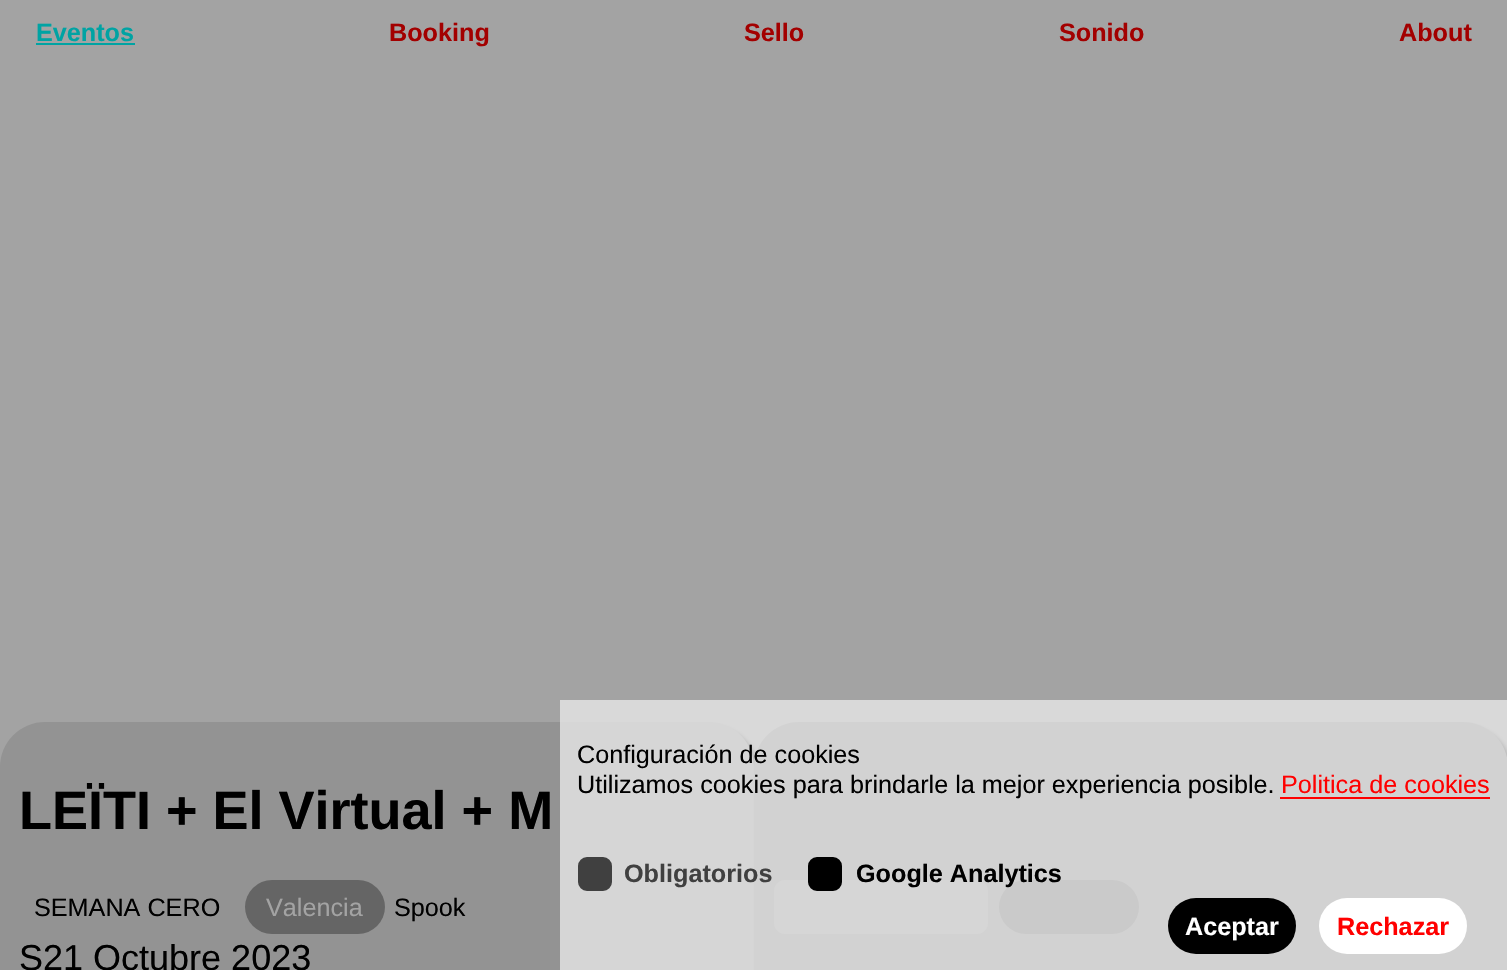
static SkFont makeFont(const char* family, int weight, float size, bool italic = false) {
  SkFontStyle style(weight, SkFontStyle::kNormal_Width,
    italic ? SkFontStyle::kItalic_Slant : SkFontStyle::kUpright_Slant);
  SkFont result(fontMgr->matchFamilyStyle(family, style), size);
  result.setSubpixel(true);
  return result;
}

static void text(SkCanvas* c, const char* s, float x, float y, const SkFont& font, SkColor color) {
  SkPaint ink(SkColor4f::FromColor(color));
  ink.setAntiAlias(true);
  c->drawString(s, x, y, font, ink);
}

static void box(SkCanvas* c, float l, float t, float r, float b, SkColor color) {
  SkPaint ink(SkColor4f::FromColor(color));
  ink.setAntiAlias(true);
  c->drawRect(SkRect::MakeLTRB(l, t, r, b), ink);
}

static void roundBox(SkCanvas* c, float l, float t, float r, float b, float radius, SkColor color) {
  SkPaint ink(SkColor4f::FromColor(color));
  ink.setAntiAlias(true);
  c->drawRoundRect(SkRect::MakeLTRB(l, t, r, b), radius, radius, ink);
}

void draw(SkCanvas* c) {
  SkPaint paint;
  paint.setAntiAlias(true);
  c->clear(0xffa3a3a3);
  SkFont face1 = makeFont("Liberation Sans", 700, 25.2f);
  text(c, "Eventos", 36, 41, face1, 0xff00a3a3);
  box(c, 36, 43, 135, 45, 0xff00a3a3);
  text(c, "Booking", 389, 41, face1, 0xffa30000);
  text(c, "Sello", 744, 41, face1, 0xffa30000);
  text(c, "Sonido", 1059, 41, face1, 0xffa30000);
  text(c, "About", 1399, 41, face1, 0xffa30000);
  paint.setColor(0xff000000);
  paint.setMaskFilter(SkMaskFilter::MakeBlur(kNormal_SkBlurStyle, 2));
  c->drawRoundRect(SkRect::MakeLTRB(5, 727, 758, 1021), 45, 45, paint);
  paint.setMaskFilter(nullptr);
  roundBox(c, 0, 722, 754, 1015, 45, 0xff939393);
  SkFont face2 = makeFont("Liberation Sans", 700, 54);
  text(c, "LEÏTI + El Virtual + M", 19, 829, face2, 0xff000000);
  SkFont face3 = makeFont("Liberation Sans", 400, 25.2f);
  text(c, "SEMANA CERO", 34, 916, face3, 0xff000000);
  roundBox(c, 245, 880, 385, 934, 27, 0xff656565);
  text(c, "Valencia", 266, 916, face3, 0xffa3a3a3);
  text(c, "Spook", 394, 916, face3, 0xff000000);
  SkFont face4 = makeFont("Liberation Sans", 400, 36);
  text(c, "S21 Octubre 2023", 19, 970, face4, 0xff000000);
  paint.setMaskFilter(SkMaskFilter::MakeBlur(kNormal_SkBlurStyle, 2));
  c->drawRoundRect(SkRect::MakeLTRB(758, 727, 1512, 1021), 45, 45, paint);
  paint.setMaskFilter(nullptr);
  roundBox(c, 754, 722, 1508, 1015, 45, 0xff808080);
  roundBox(c, 774, 880, 988, 934, 11, 0xff939393);
  roundBox(c, 999, 880, 1139, 934, 27, 0xff585858);
  box(c, 560, 700, 1507, 970, 0xcce6e6e6);
  text(c, "Configuración de cookies", 577, 763, face3, 0xff000000);
  text(c, "Utilizamos cookies para brindarle la mejor experiencia posible.", 577, 793, face3, 0xff000000);
  text(c, "Politica de cookies", 1281, 793, face3, 0xffff0000);
  box(c, 1280, 797, 1490, 799, 0xffff0000);
  paint.setColor(0xff404040);
  c->drawRoundRect(SkRect::MakeLTRB(580.5f, 859.5f, 609.5f, 888.5f), 6.5f, 6.5f, paint);
  paint.setStyle(SkPaint::kStroke_Style);
  paint.setStrokeWidth(5);
  c->drawRoundRect(SkRect::MakeLTRB(580.5f, 859.5f, 609.5f, 888.5f), 6.5f, 6.5f, paint);
  text(c, "Obligatorios", 624, 882, face1, 0xff404040);
  paint.setStyle(SkPaint::kFill_Style);
  paint.setColor(0xff000000);
  c->drawRoundRect(SkRect::MakeLTRB(810.5f, 859.5f, 839.5f, 888.5f), 6.5f, 6.5f, paint);
  paint.setStyle(SkPaint::kStroke_Style);
  c->drawRoundRect(SkRect::MakeLTRB(810.5f, 859.5f, 839.5f, 888.5f), 6.5f, 6.5f, paint);
  text(c, "Google Analytics", 856, 882, face1, 0xff000000);
  roundBox(c, 1168, 898, 1296, 954, 28, 0xff000000);
  text(c, "Aceptar", 1185, 935, face1, 0xffffffff);
  roundBox(c, 1319, 898, 1467, 954, 28, 0xffffffff);
  text(c, "Rechazar", 1337, 935, face1, 0xffff0000);
}
